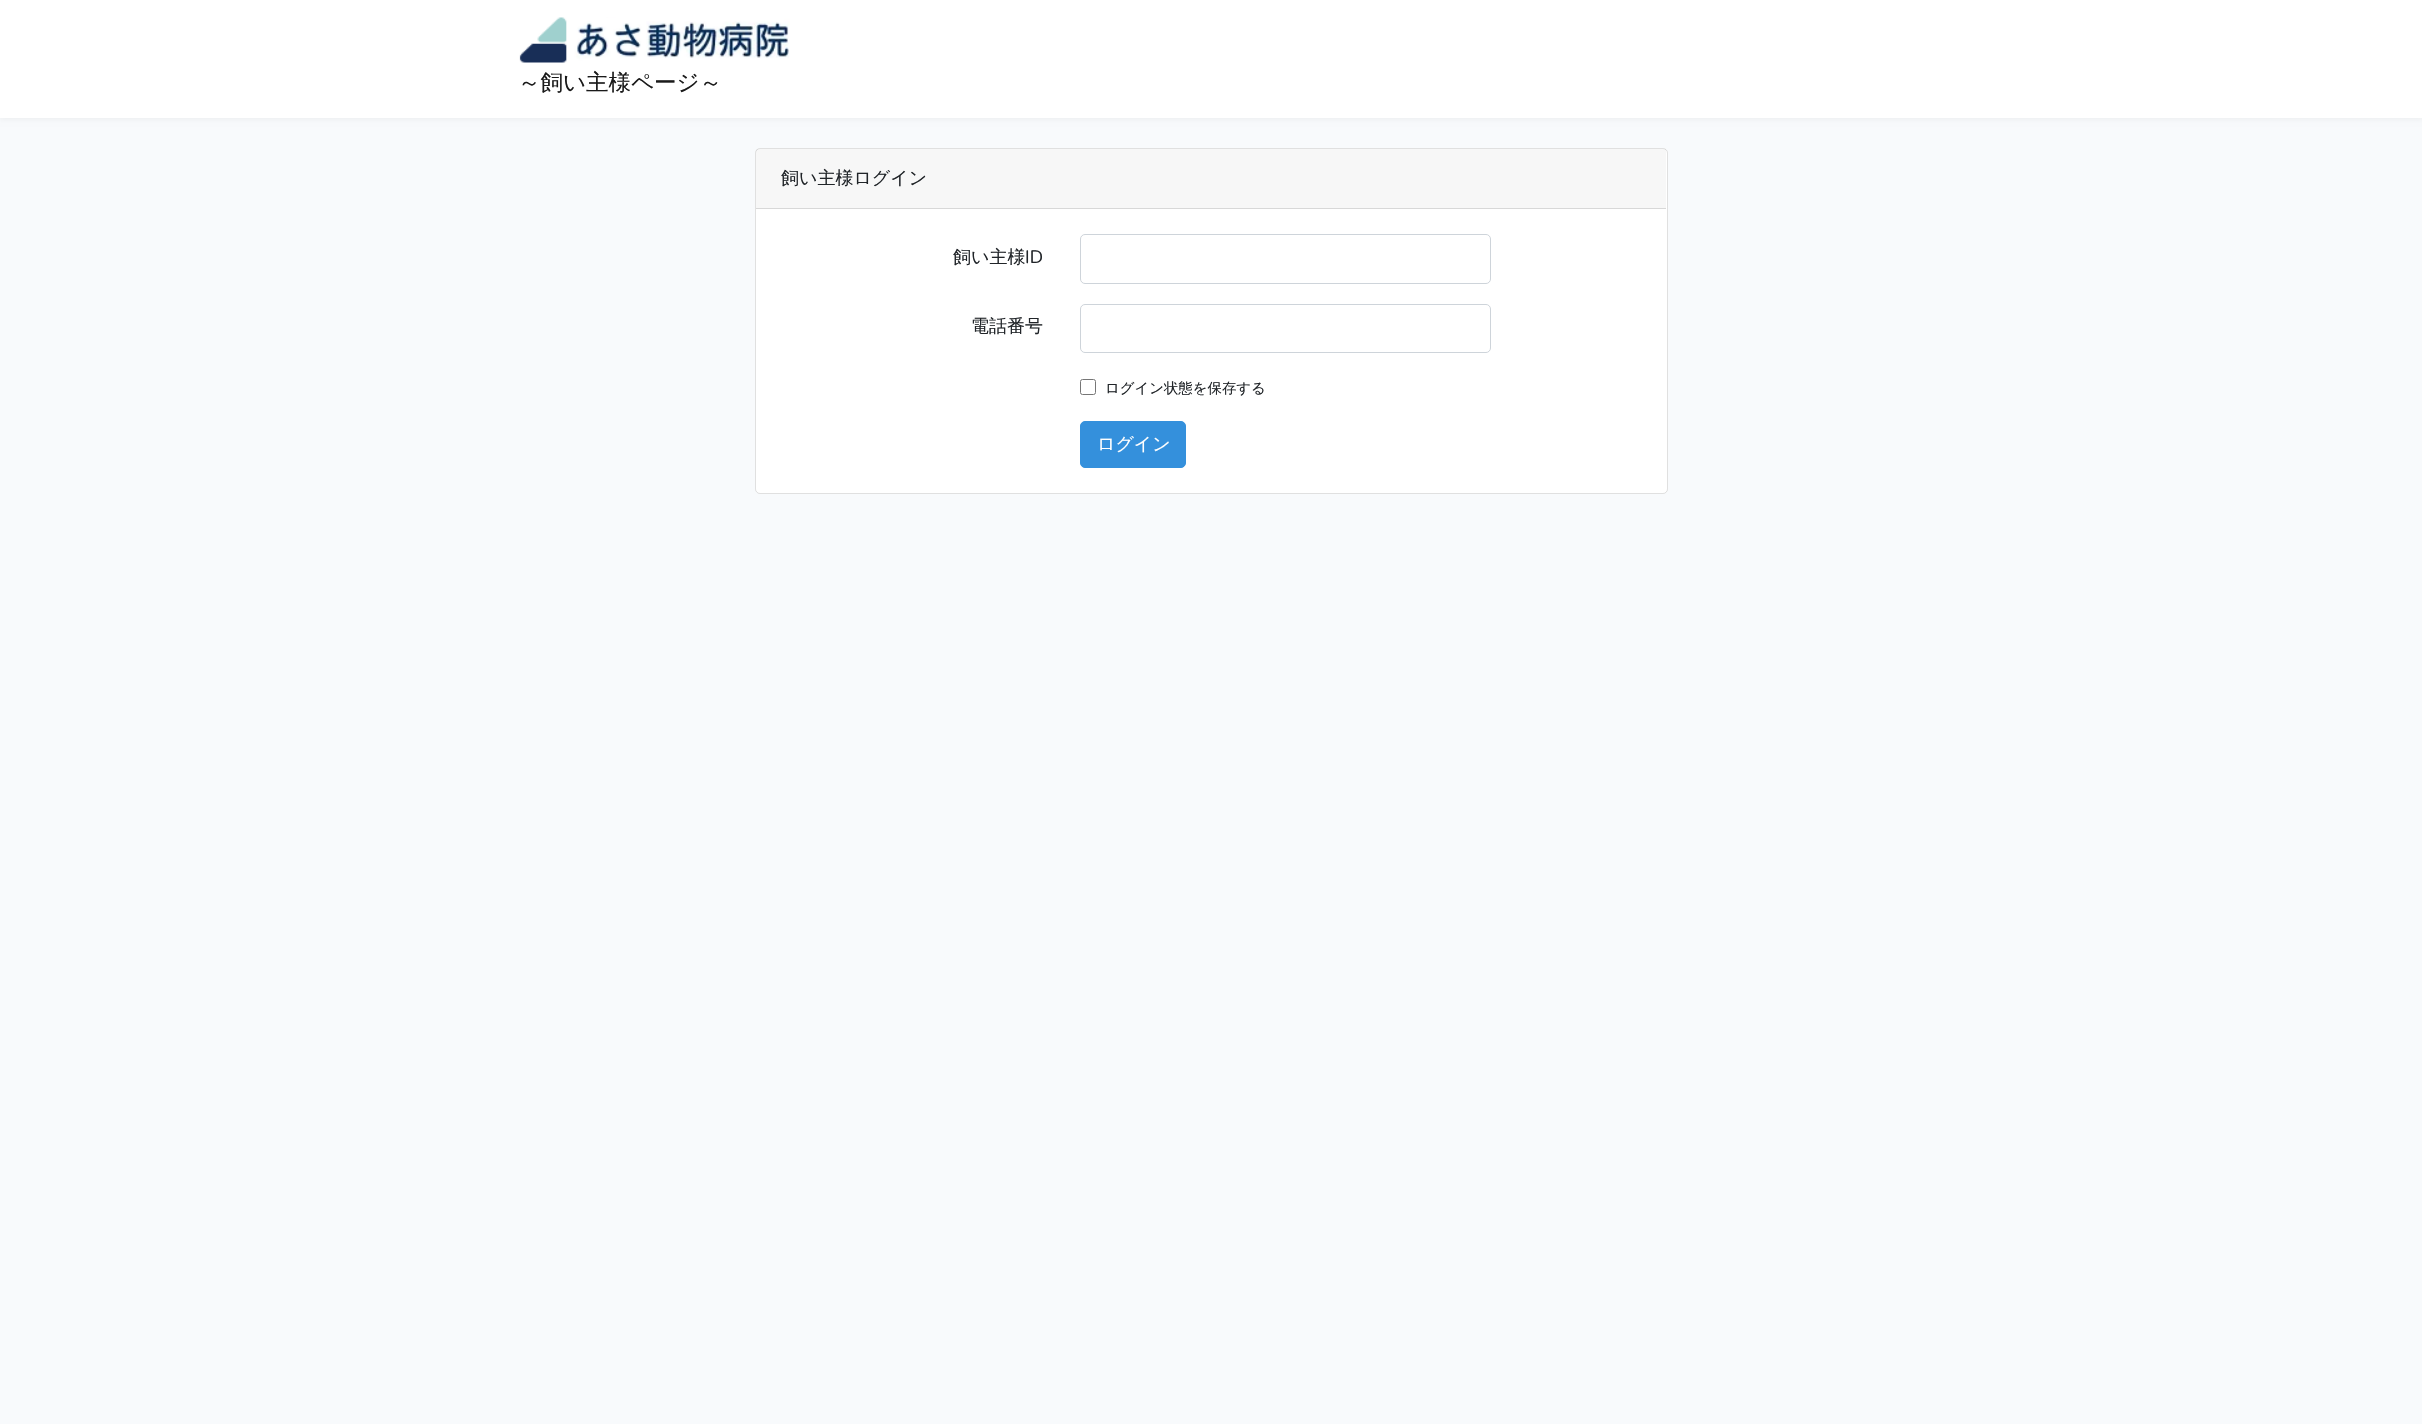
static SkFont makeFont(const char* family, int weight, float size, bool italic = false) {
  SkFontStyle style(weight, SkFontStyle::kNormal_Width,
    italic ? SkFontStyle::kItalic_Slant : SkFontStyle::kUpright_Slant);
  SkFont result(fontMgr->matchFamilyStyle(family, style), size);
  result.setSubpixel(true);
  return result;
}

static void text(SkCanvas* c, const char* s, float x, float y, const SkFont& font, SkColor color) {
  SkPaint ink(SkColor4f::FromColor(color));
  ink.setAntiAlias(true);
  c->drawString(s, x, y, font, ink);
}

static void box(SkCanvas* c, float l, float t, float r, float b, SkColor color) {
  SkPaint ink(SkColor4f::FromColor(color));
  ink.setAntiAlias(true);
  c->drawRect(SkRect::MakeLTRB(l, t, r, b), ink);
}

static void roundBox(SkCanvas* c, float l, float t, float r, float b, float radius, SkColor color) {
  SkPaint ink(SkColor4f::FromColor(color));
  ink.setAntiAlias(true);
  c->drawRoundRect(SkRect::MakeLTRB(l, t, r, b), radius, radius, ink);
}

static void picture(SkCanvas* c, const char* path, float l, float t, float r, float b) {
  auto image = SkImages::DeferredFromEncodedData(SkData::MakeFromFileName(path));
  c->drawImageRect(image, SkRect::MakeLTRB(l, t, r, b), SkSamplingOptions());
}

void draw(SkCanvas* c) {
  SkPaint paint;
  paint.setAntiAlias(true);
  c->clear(0xfff8fafc);
  paint.setColor(0x0a000000);
  paint.setMaskFilter(SkMaskFilter::MakeBlur(kNormal_SkBlurStyle, 2.5f));
  c->drawRect(SkRect::MakeLTRB(0, 3, 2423, 120), paint);
  paint.setMaskFilter(nullptr);
  box(c, 0, 0, 2422, 118, 0xffffffff);
  picture(c, "img_01.png", 519, 17, 790, 63);
  SkFont face1 = makeFont("WenQuanYi Zen Hei", 500, 22.5f);
  text(c, "～飼い主様ページ～", 518, 90, face1, 0xff1a1a1a);
  roundBox(c, 755, 148, 1668, 494, 5, 0xffffffff);
  paint.setStyle(SkPaint::kStroke_Style);
  paint.setStrokeWidth(1);
  paint.setColor(0x1f000000);
  c->drawRoundRect(SkRect::MakeLTRB(755.5f, 148.5f, 1667.5f, 493.5f), 4.5f, 4.5f, paint);
  box(c, 756, 149, 1666, 208, 0x08000000);
  box(c, 756, 208, 1666, 209, 0xffd8d8d8);
  SkFont face2 = makeFont("WenQuanYi Zen Hei", 500, 18);
  text(c, "飼い主様ログイン", 781, 184, face2, 0xff212529);
  text(c, "飼い主様", 953, 263, face2, 0xff212529);
  SkFont face3 = makeFont("Nunito", 200, 18);
  text(c, "ID", 1025, 263, face3, 0xff212529);
  paint.setColor(0xffced4da);
  c->drawRoundRect(SkRect::MakeLTRB(1080.5f, 234.5f, 1490.5f, 283.5f), 4.5f, 4.5f, paint);
  text(c, "電話番号", 971, 332, face2, 0xff212529);
  c->drawRoundRect(SkRect::MakeLTRB(1080.5f, 304.5f, 1490.5f, 352.5f), 4.5f, 4.5f, paint);
  paint.setColor(0xff767676);
  c->drawRoundRect(SkRect::MakeLTRB(1080.5f, 379.5f, 1095.5f, 394.5f), 2, 2, paint);
  SkFont face4 = makeFont("WenQuanYi Zen Hei", 500, 14.4f);
  text(c, "ログイン状態を保存する", 1105, 393, face4, 0xff212529);
  paint.setStyle(SkPaint::kFill_Style);
  paint.setColor(0xff3490dc);
  c->drawRoundRect(SkRect::MakeLTRB(1080.5f, 421.5f, 1185.5f, 467.5f), 4.5f, 4.5f, paint);
  paint.setStyle(SkPaint::kStroke_Style);
  c->drawRoundRect(SkRect::MakeLTRB(1080.5f, 421.5f, 1185.5f, 467.5f), 4.5f, 4.5f, paint);
  text(c, "ログイン", 1097, 450, face2, 0xffffffff);
}
